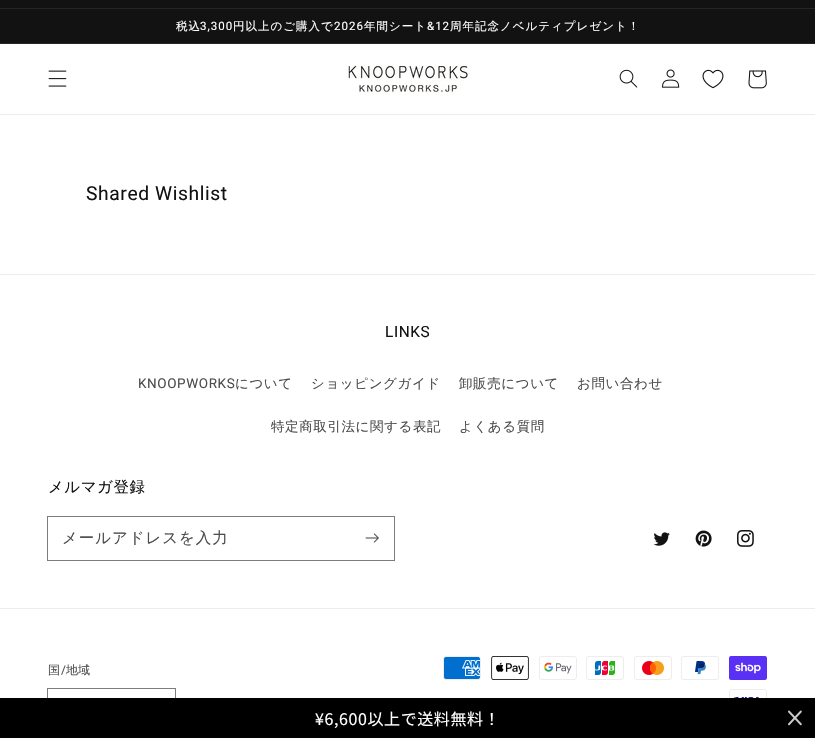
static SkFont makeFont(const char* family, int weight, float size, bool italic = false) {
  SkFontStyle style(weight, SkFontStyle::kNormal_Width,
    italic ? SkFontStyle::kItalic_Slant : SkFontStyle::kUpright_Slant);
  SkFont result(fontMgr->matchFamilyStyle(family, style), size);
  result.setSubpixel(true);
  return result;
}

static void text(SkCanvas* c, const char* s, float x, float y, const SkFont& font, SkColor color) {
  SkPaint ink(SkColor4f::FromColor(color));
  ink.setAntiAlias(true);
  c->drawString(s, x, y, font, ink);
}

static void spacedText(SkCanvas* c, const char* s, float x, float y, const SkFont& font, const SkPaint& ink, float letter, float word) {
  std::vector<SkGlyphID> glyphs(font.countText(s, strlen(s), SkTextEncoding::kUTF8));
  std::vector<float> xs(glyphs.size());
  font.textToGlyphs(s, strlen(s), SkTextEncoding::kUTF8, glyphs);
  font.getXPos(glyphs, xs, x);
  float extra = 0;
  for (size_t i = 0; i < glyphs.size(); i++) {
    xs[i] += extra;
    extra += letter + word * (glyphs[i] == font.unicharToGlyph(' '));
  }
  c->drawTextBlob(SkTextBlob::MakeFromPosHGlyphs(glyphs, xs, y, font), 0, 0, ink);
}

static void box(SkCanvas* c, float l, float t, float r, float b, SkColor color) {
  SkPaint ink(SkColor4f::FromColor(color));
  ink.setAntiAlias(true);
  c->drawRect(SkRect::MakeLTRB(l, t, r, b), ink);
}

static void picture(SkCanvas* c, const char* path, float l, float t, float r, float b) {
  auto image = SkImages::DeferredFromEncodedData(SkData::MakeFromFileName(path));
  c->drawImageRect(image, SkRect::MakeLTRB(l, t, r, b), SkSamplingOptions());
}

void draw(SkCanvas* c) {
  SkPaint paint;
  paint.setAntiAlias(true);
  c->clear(0xffffffff);
  box(c, 0, 0, 815, 8, 0xff121212);
  box(c, 0, 8, 815, 9, 0xff252525);
  box(c, 0, 9, 815, 43, 0xff121212);
  box(c, 0, 43, 815, 44, 0xff252525);
  SkFont face1 = makeFont("WenQuanYi Zen Hei", 500, 11.5f);
  paint.setColor(0xffffffff);
  spacedText(c, "税込", 176, 30, face1, paint, 1, 0);
  SkFont face2 = makeFont("Roboto", 400, 11.5f);
  spacedText(c, "3,300", 200, 30, face2, paint, 1, 0);
  spacedText(c, "円以上のご購入で", 233, 30, face1, paint, 1, 0);
  spacedText(c, "2026", 334, 30, face2, paint, 1, 0);
  spacedText(c, "年間シート", 364, 30, face1, paint, 1, 0);
  spacedText(c, "&12", 427, 30, face2, paint, 1, 0);
  spacedText(c, "周年記念ノベルティプレゼント！", 450, 30, face1, paint, 1, 0);
  paint.setStyle(SkPaint::kStroke_Style);
  paint.setStrokeWidth(1);
  paint.setColor(0xff7d7d7d);
  c->drawRect(SkRect::MakeLTRB(47.5f, 688.5f, 175.5f, 728.5f), paint);
  box(c, 0, 698, 815, 738, 0xff000000);
  SkFont face3 = makeFont("Noto Sans JP", 100, 16);
  paint.setStyle(SkPaint::kFill_Style);
  paint.setColor(0xffffffff);
  spacedText(c, "¥6,600以上で送料無料！", 315, 725, face3, paint, 0.6f, 0);
  picture(c, "img_01.png", 788, 710, 802, 726);
  box(c, 0, 114, 815, 115, 0xffececec);
  picture(c, "img_02.png", 48, 70, 67, 87);
  picture(c, "img_03.png", 346, 65, 470, 93);
  picture(c, "img_04.png", 619, 69, 638, 88);
  picture(c, "img_05.png", 662, 69, 680, 88);
  picture(c, "img_06.png", 702, 69, 724, 89);
  picture(c, "img_07.png", 748, 70, 767, 89);
  SkFont face4 = makeFont("Roboto", 400, 19.25f);
  paint.setColor(0xff121212);
  spacedText(c, "Shared Wishlist", 86, 200, face4, paint, 0.6f, 0);
  box(c, 0, 274, 815, 275, 0xffececec);
  SkFont face5 = makeFont("Roboto", 400, 15.4f);
  spacedText(c, "LINKS", 385, 337, face5, paint, 0.6f, 0);
  SkFont face6 = makeFont("Roboto", 400, 13.5f);
  paint.setColor(0xff4d4d4d);
  spacedText(c, "KNOOPWORKS", 138, 388, face6, paint, 0.6f, 0);
  SkFont face7 = makeFont("WenQuanYi Zen Hei", 500, 13.5f);
  spacedText(c, "について", 235, 388, face7, paint, 0.6f, 0);
  spacedText(c, "ショッピングガイド", 311, 388, face7, paint, 0.6f, 0);
  spacedText(c, "卸販売について", 459, 388, face7, paint, 0.6f, 0);
  spacedText(c, "お問い合わせ", 577, 388, face7, paint, 0.6f, 0);
  spacedText(c, "特定商取引法に関する表記", 271, 431, face7, paint, 0.6f, 0);
  spacedText(c, "よくある質問", 459, 431, face7, paint, 0.6f, 0);
  SkFont face8 = makeFont("WenQuanYi Zen Hei", 500, 15.4f);
  paint.setColor(0xff121212);
  spacedText(c, "メルマガ登録", 48, 492, face8, paint, 0.6f, 0);
  paint.setStyle(SkPaint::kStroke_Style);
  paint.setColor(0xff7d7d7d);
  c->drawRect(SkRect::MakeLTRB(47.5f, 516.5f, 394.5f, 560.5f), paint);
  paint.setStyle(SkPaint::kFill_Style);
  paint.setColor(0xff4d4d4d);
  spacedText(c, "メールアドレスを入力", 62, 543, face8, paint, 1, 0);
  picture(c, "img_08.png", 365, 533, 379, 543);
  picture(c, "img_09.png", 653, 532, 670, 546);
  picture(c, "img_10.png", 695, 530, 712, 547);
  picture(c, "img_11.png", 737, 530, 754, 547);
  box(c, 0, 608, 815, 609, 0xffececec);
  SkFont face9 = makeFont("WenQuanYi Zen Hei", 500, 12);
  text(c, "国", 48, 674, face9, 0xff4d4d4d);
  SkFont face10 = makeFont("Roboto", 400, 12);
  text(c, "/", 61, 674, face10, 0xff4d4d4d);
  text(c, "地域", 66, 674, face9, 0xff4d4d4d);
  picture(c, "img_12.png", 443, 656, 481, 680);
  picture(c, "img_13.png", 491, 656, 529, 680);
  picture(c, "img_14.png", 539, 656, 577, 680);
  picture(c, "img_15.png", 586, 656, 624, 680);
  picture(c, "img_16.png", 634, 656, 672, 680);
  picture(c, "img_17.png", 681, 656, 719, 680);
  picture(c, "img_18.png", 729, 656, 767, 680);
  picture(c, "img_19.png", 729, 689, 767, 698);
}
